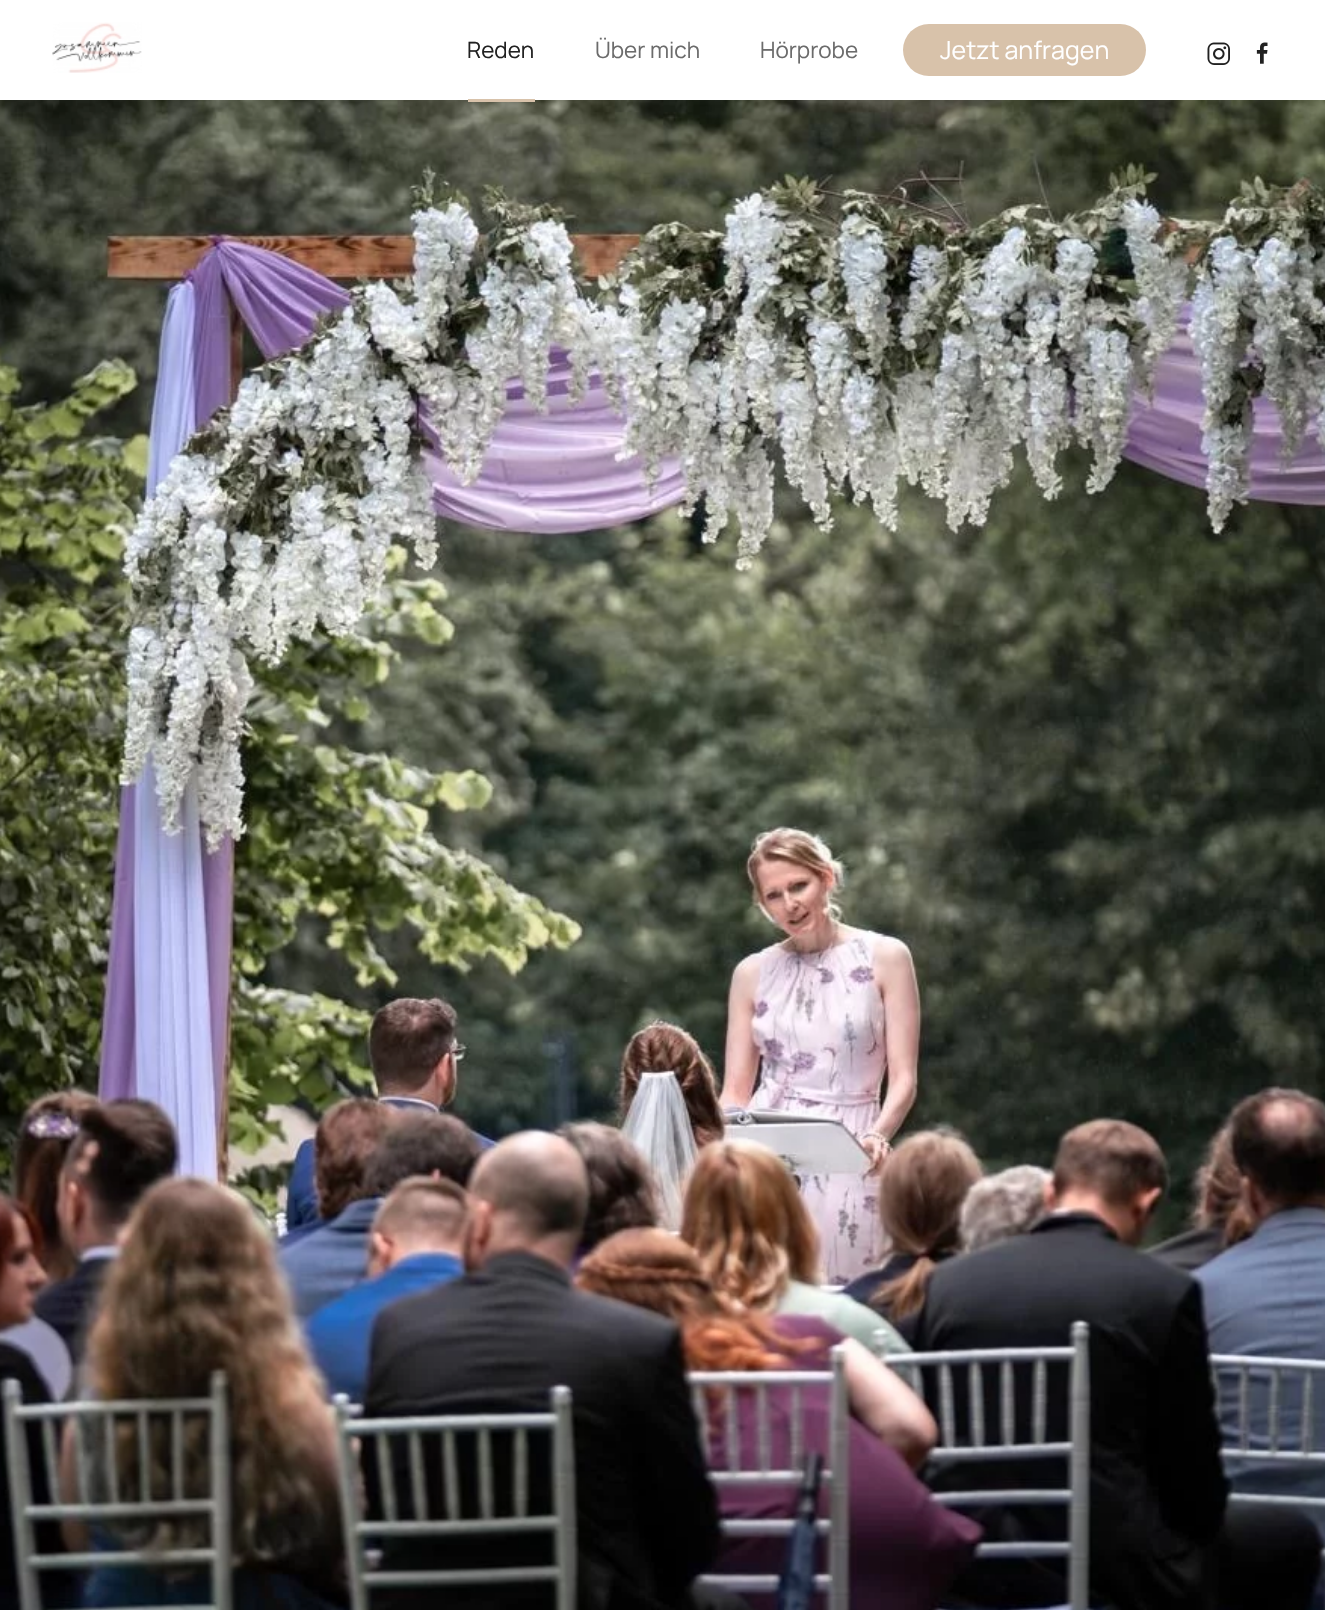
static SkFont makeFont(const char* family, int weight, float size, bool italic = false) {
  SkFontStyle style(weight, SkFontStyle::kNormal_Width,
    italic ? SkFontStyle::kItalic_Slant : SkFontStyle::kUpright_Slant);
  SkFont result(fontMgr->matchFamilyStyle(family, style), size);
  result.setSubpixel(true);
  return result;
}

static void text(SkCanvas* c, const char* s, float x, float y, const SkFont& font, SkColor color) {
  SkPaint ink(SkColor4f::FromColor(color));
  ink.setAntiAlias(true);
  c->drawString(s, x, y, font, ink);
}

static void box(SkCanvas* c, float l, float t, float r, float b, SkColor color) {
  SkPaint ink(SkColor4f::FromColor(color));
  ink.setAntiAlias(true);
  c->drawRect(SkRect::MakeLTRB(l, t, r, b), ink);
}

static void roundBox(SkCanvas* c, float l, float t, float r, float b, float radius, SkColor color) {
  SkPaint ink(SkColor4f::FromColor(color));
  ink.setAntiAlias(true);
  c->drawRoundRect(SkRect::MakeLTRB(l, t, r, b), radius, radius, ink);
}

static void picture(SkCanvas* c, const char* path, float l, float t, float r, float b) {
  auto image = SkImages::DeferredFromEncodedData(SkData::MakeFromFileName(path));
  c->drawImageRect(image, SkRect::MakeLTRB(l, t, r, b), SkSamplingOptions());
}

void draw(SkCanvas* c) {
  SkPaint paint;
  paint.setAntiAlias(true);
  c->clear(0xffffffff);
  picture(c, "img_01.png", 52, 22, 142, 73);
  SkFont face1 = makeFont("Manrope", 200, 22.5f);
  text(c, "Reden", 467, 58, face1, 0xff212121);
  picture(c, "img_04.png", 0, 100, 1325, 1610);
  box(c, 468, 99, 535, 102, 0xffd8c2aa);
  text(c, "Über mich", 595, 58, face1, 0xff6b6b6b);
  text(c, "Hörprobe", 760, 58, face1, 0xff6b6b6b);
  roundBox(c, 903, 24, 1146, 76, 26, 0xffd8c2aa);
  SkFont face2 = makeFont("Manrope", 200, 25);
  text(c, "Jetzt anfragen", 940, 59, face2, 0xffffffff);
  picture(c, "img_02.png", 1207, 42, 1230, 65);
  picture(c, "img_03.png", 1256, 42, 1268, 64);
}
